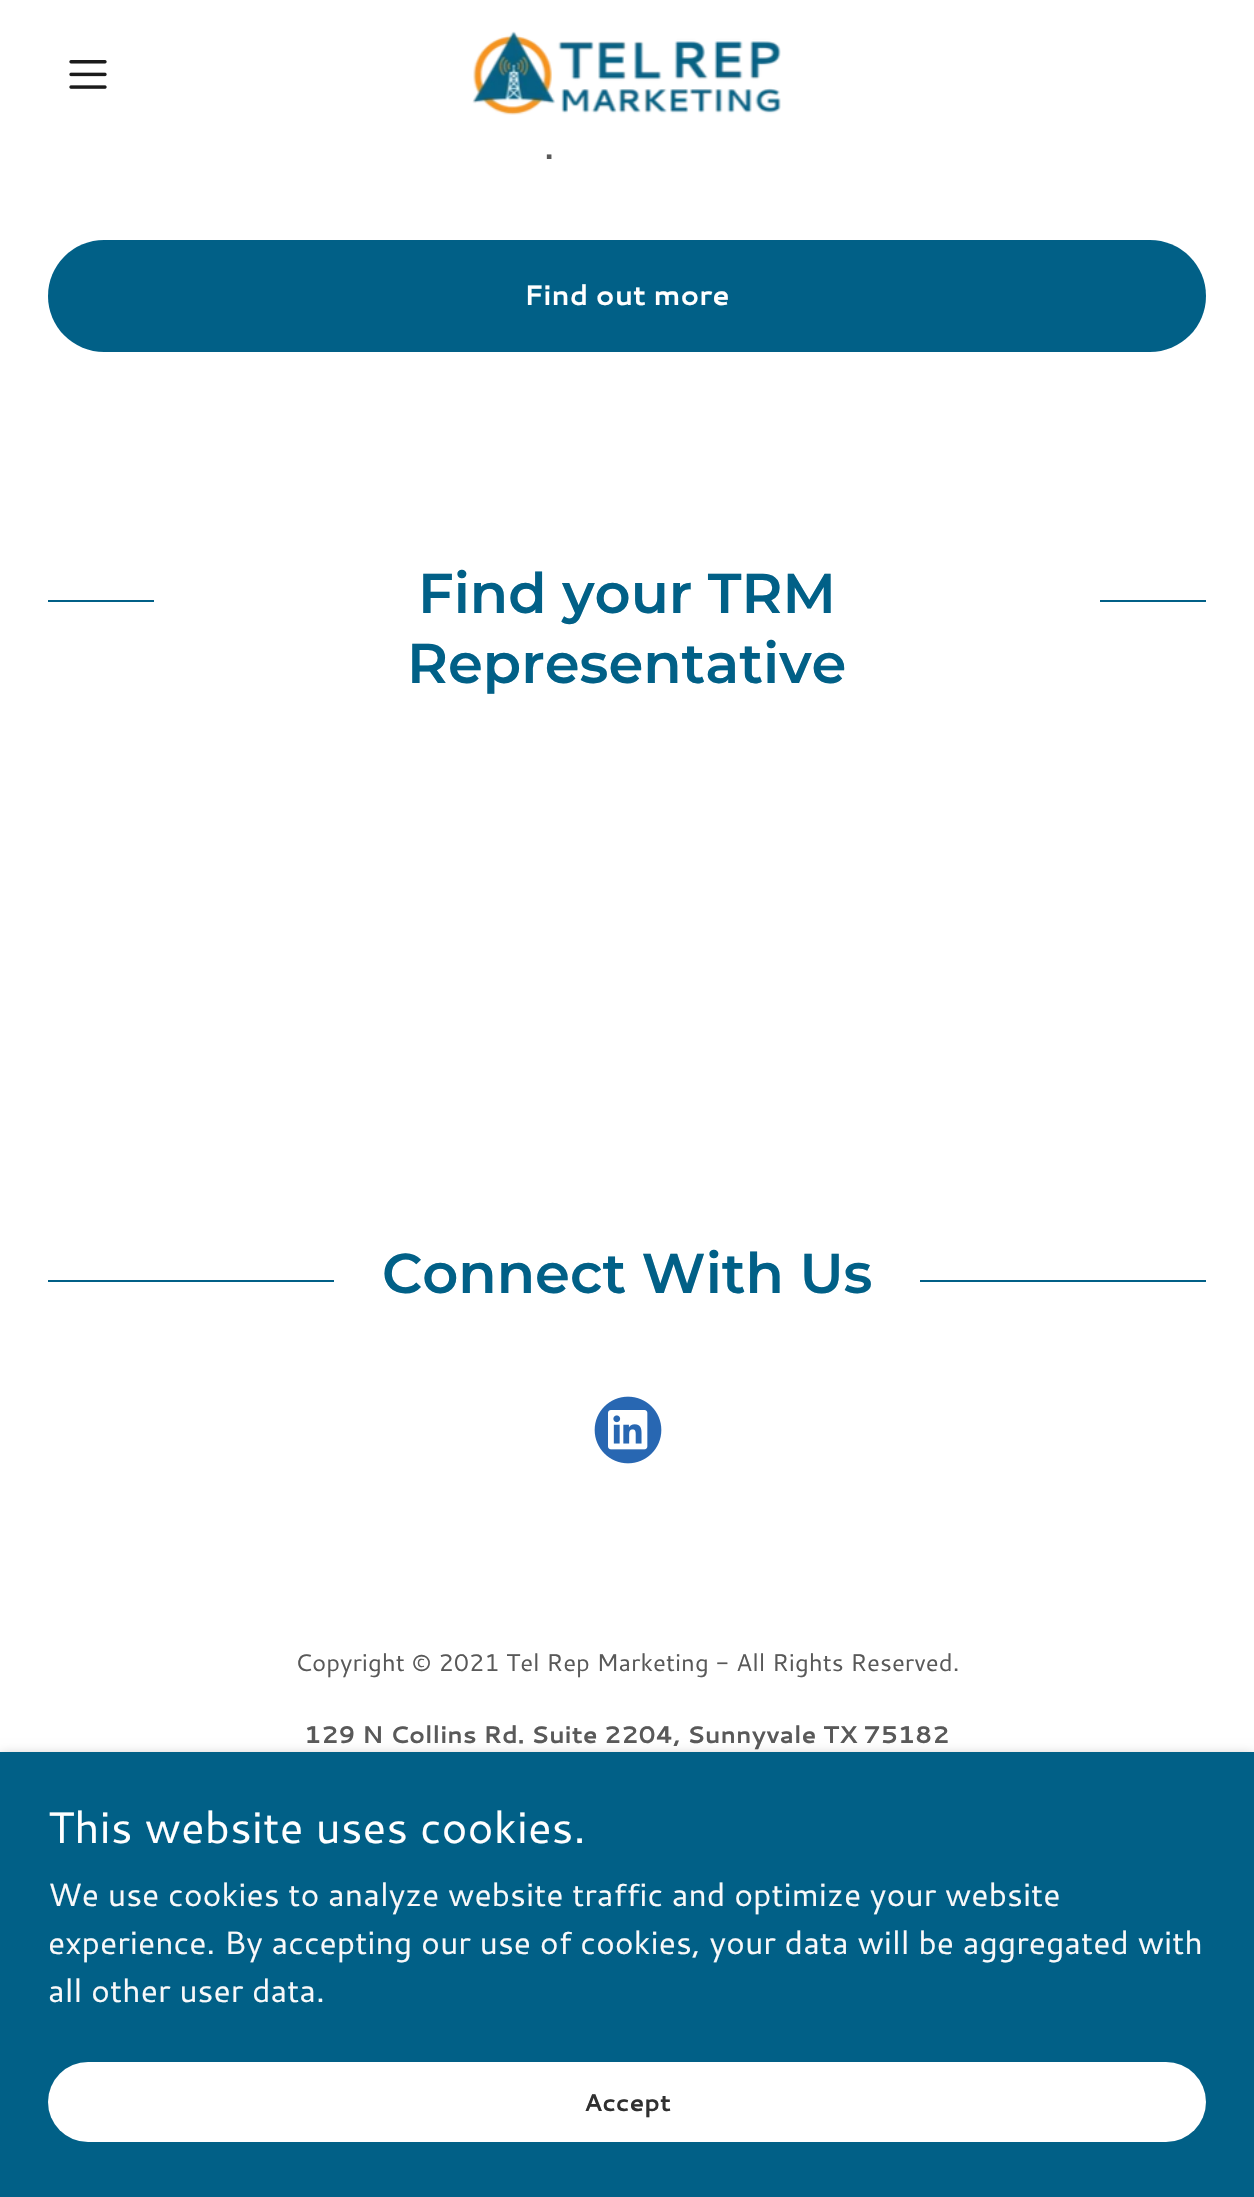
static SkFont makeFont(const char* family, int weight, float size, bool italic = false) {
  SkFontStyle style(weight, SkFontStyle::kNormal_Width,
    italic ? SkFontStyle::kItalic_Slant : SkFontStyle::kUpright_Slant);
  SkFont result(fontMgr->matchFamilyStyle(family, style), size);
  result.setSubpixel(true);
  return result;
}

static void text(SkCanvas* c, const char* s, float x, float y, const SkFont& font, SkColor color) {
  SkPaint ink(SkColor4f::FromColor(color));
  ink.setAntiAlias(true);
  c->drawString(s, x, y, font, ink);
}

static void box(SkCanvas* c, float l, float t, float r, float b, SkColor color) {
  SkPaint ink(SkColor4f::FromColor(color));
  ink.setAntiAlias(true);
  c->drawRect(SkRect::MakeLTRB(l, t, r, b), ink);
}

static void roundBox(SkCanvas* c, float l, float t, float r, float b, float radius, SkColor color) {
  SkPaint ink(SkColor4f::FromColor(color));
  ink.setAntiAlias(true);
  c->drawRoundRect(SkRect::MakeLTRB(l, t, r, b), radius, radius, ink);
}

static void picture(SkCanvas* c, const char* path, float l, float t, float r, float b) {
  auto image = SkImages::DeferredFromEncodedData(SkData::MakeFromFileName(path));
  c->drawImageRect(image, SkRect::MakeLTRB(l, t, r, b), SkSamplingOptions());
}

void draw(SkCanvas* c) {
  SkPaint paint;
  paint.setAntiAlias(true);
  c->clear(0xffffffff);
  picture(c, "img_01.png", 69, 60, 107, 89);
  picture(c, "img_02.png", 472, 31, 781, 115);
  SkFont face1 = makeFont("Cantarell", 400, 44);
  text(c, ".", 543, 159, face1, 0xff595959);
  roundBox(c, 48, 240, 1206, 352, 56, 0xff016087);
  SkFont face2 = makeFont("Cantarell", 700, 28);
  text(c, "Find out more", 524, 305, face2, 0xffffffff);
  box(c, 48, 600, 154, 602, 0xff016087);
  SkFont face3 = makeFont("Montserrat", 600, 56);
  text(c, "Find your TRM", 418, 613, face3, 0xff016087);
  box(c, 1100, 600, 1206, 602, 0xff016087);
  text(c, "Representative", 407, 683, face3, 0xff016087);
  box(c, 48, 1280, 334, 1282, 0xff016087);
  text(c, "Connect With Us", 382, 1293, face3, 0xff016087);
  box(c, 920, 1280, 1206, 1282, 0xff016087);
  picture(c, "img_03.png", 594, 1396, 662, 1464);
  SkFont face4 = makeFont("Cantarell", 400, 24);
  text(c, "Copyright © 2021 Tel Rep Marketing - All Rights Reserved.", 295, 1671, face4, 0xff595959);
  SkFont face5 = makeFont("Cantarell", 700, 24);
  text(c, "129 N Collins Rd. Suite 2204, Sunnyvale TX 75182", 304, 1743, face5, 0xff595959);
  paint.setColor(0x4d000000);
  paint.setMaskFilter(SkMaskFilter::MakeBlur(kNormal_SkBlurStyle, 6));
  c->drawRect(SkRect::MakeLTRB(0, 1756, 1254, 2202), paint);
  paint.setMaskFilter(nullptr);
  box(c, 0, 1752, 1254, 2197, 0xff016087);
  text(c, "This website uses cookies.", 48, 1843, face1, 0xffffffff);
  SkFont face6 = makeFont("Cantarell", 400, 32);
  text(c, "We use cookies to analyze website traffic and optimize your website", 48, 1906, face6, 0xfff9f9fa);
  text(c, "experience. By accepting our use of cookies, your data will be aggregated with", 48, 1954, face6, 0xfff9f9fa);
  text(c, "all other user data.", 48, 2002, face6, 0xfff9f9fa);
  roundBox(c, 48, 2062, 1206, 2142, 40, 0xffffffff);
  text(c, "Accept", 584, 2111, face5, 0xff303030);
}
